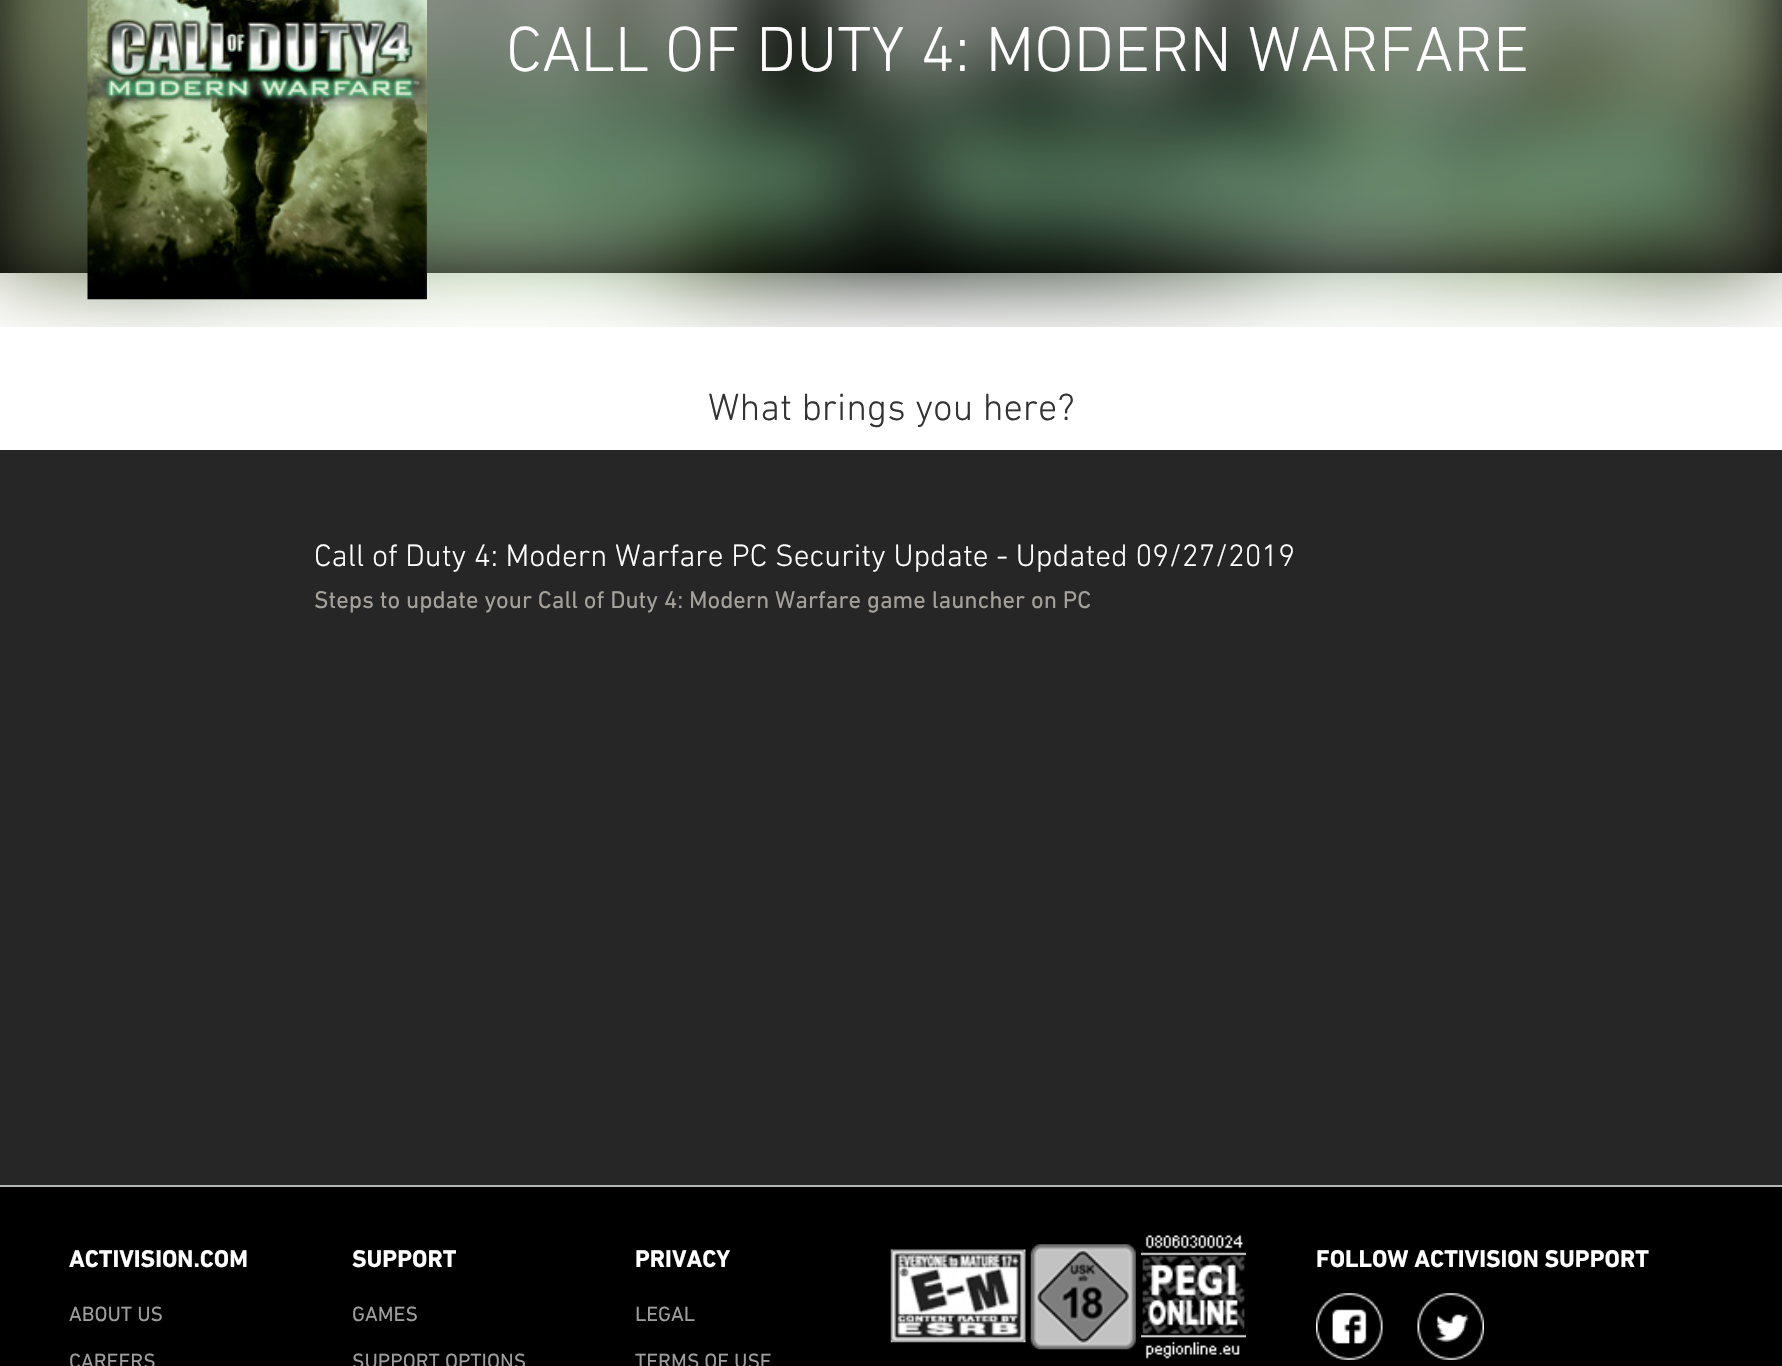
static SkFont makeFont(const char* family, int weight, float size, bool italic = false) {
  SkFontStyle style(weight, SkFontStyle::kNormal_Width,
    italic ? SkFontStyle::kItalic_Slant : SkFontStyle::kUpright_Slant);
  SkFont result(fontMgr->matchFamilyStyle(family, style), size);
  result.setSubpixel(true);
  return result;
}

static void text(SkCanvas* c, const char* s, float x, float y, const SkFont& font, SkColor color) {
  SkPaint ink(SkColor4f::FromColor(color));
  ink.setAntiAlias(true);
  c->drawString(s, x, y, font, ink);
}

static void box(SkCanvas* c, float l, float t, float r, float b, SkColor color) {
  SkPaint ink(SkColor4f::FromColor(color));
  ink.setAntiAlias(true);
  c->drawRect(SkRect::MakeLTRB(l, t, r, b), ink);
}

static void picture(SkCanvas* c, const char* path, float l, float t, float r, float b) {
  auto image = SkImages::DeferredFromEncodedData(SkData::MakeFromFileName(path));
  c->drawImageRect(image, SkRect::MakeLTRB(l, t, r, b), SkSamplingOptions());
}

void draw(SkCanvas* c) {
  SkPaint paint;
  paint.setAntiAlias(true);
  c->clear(0xff262626);
  box(c, 0, 0, 1782, 273, 0xff000000);
  box(c, 0, 273, 1782, 450, 0xffffffff);
  picture(c, "img_01.png", 0, 0, 1782, 327);
  box(c, 0, 0, 1782, 273, 0x33000000);
  picture(c, "img_02.png", 87, 0, 427, 300);
  SkFont face1 = makeFont("DIN Next", 300, 64.75f);
  text(c, "CALL OF DUTY 4: MODERN WARFARE", 506, 71, face1, 0xffffffff);
  SkFont face2 = makeFont("DIN Next", 300, 38.5f);
  text(c, "What brings you here?", 708, 420, face2, 0xff333333);
  SkFont face3 = makeFont("DIN Next", 300, 31.5f);
  text(c, "Call of Duty 4: Modern Warfare PC Security Update - Updated 09/27/2019", 314, 566, face3, 0xffffffff);
  SkFont face4 = makeFont("DIN Next", 400, 24.5f);
  text(c, "Steps to update your Call of Duty 4: Modern Warfare game launcher on PC", 314, 608, face4, 0xffa4a09a);
  box(c, 0, 1187, 1782, 1366, 0xff000000);
  box(c, 0, 1185, 1782, 1187, 0xffb3b6b7);
  SkFont face5 = makeFont("DIN Next", 700, 24.5f);
  text(c, "ACTIVISION.COM", 69, 1267, face5, 0xffffffff);
  SkFont face6 = makeFont("DIN Next", 400, 21);
  text(c, "ABOUT US", 69, 1321, face6, 0xff9d9d9d);
  text(c, "CAREERS", 69, 1368, face6, 0xff9d9d9d);
  text(c, "SUPPORT", 352, 1267, face5, 0xffffffff);
  text(c, "GAMES", 352, 1321, face6, 0xff9d9d9d);
  text(c, "SUPPORT OPTIONS", 352, 1368, face6, 0xff9d9d9d);
  text(c, "PRIVACY", 635, 1267, face5, 0xffffffff);
  text(c, "LEGAL", 635, 1321, face6, 0xff9d9d9d);
  text(c, "TERMS OF USE", 635, 1368, face6, 0xff9d9d9d);
  picture(c, "img_03.png", 890, 1249, 1026, 1343);
  picture(c, "img_04.png", 1030, 1244, 1136, 1350);
  picture(c, "img_05.png", 1141, 1235, 1246, 1359);
  text(c, "FOLLOW ACTIVISION SUPPORT", 1316, 1267, face5, 0xffffffff);
  picture(c, "img_06.png", 1316, 1293, 1383, 1360);
  picture(c, "img_07.png", 1417, 1293, 1484, 1360);
}
